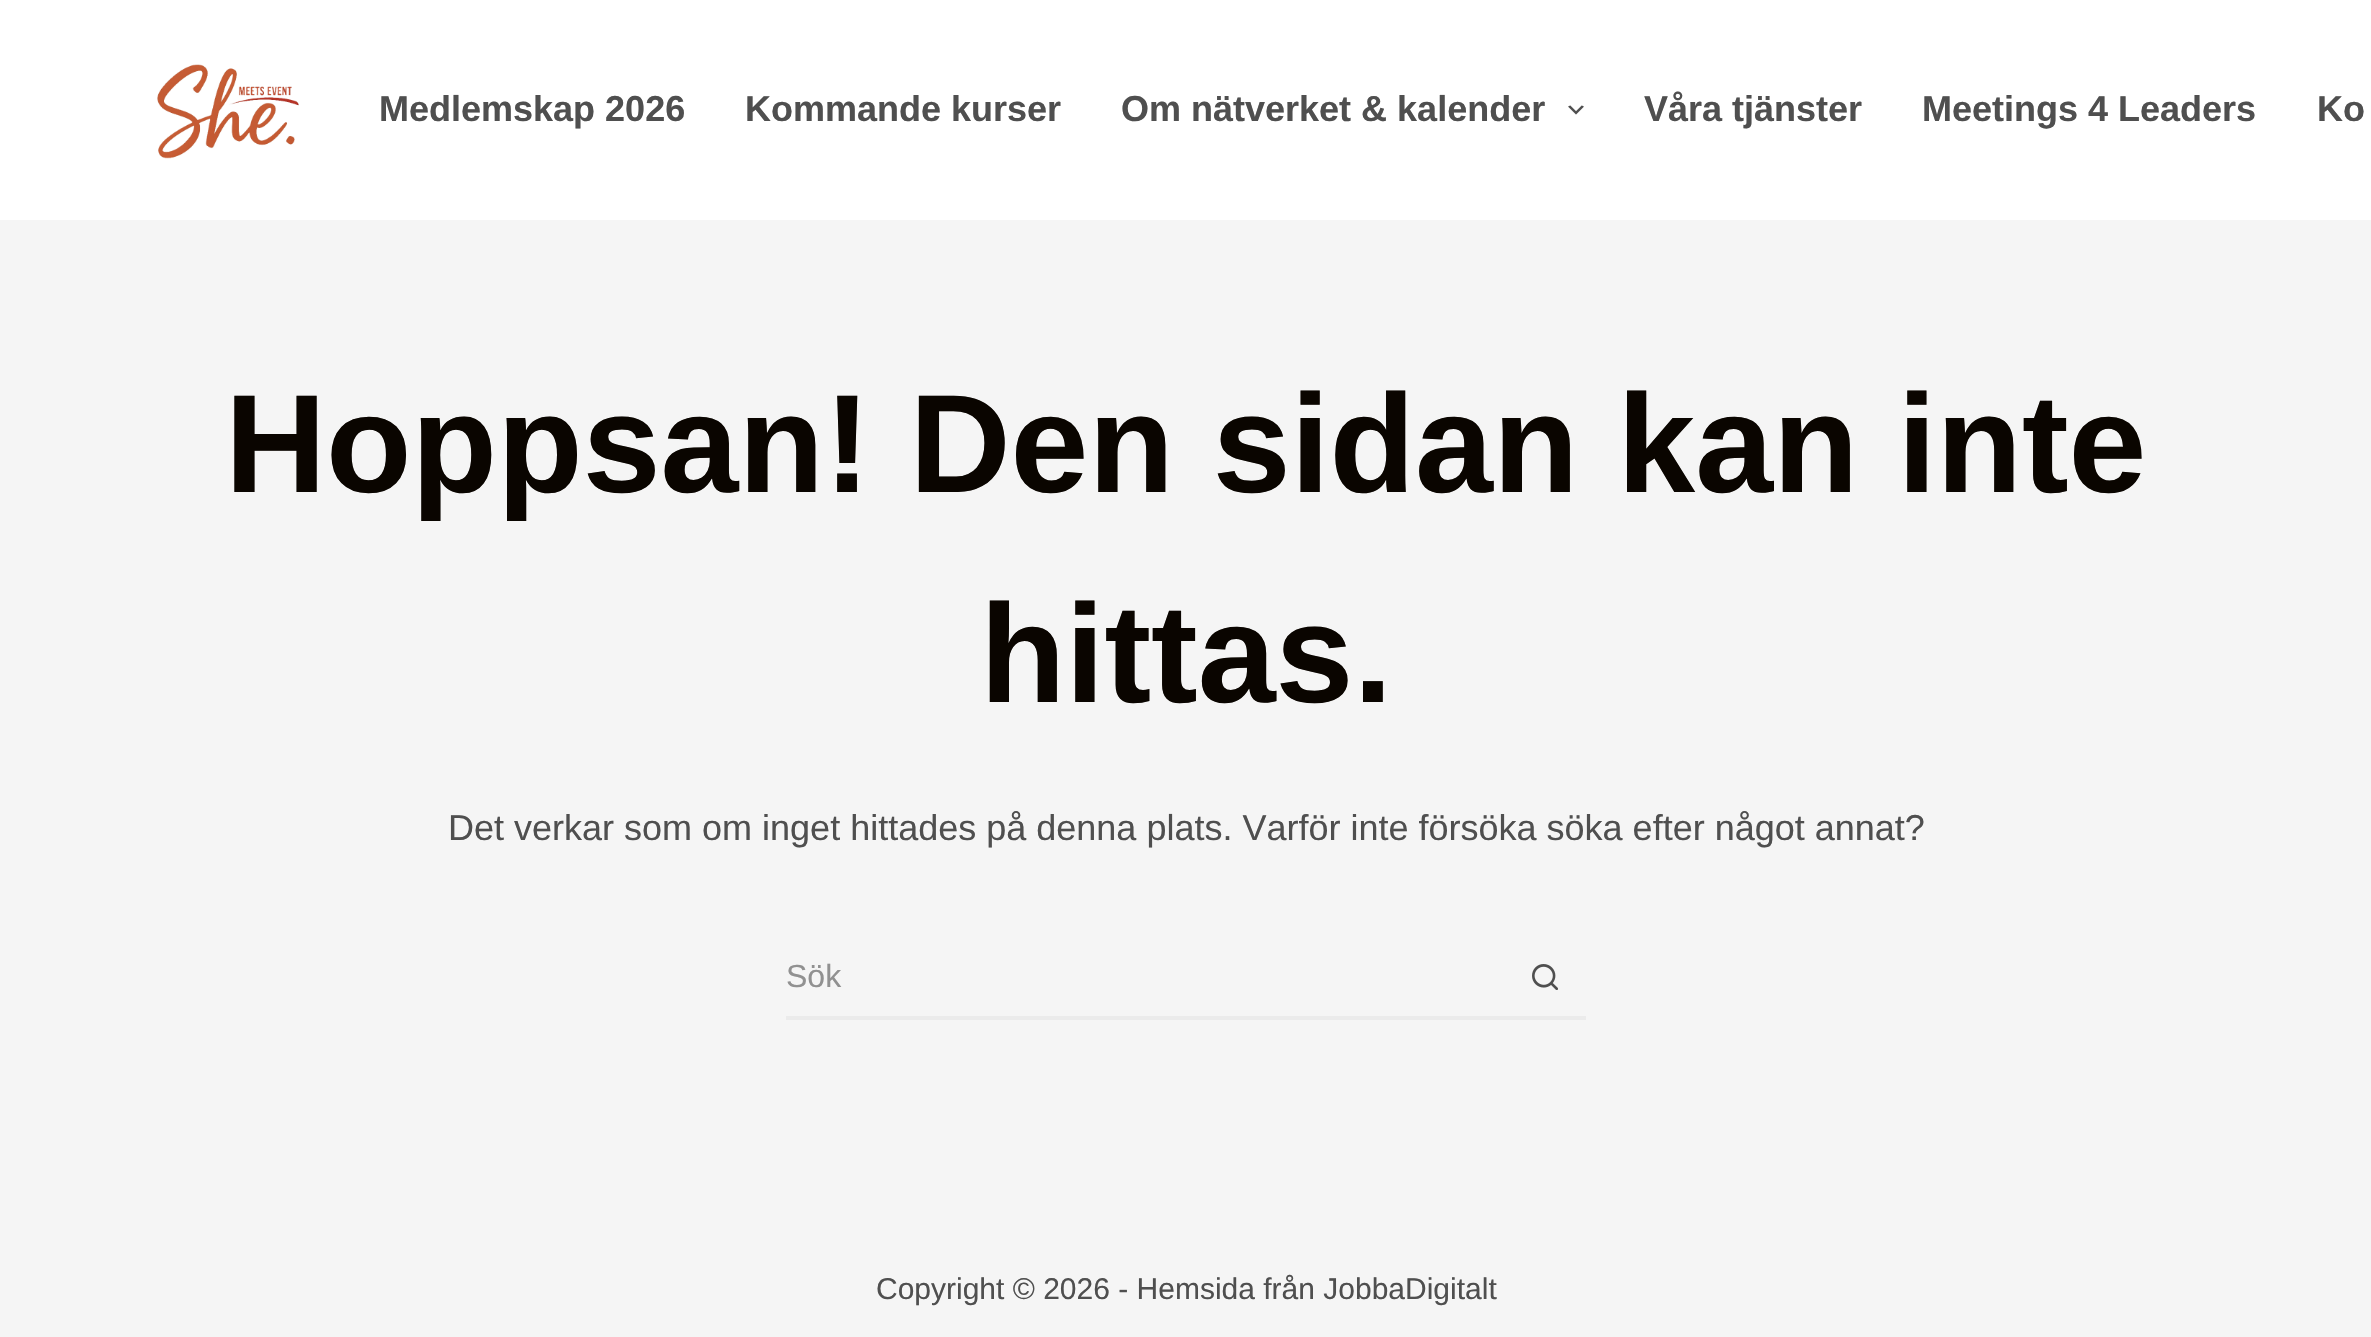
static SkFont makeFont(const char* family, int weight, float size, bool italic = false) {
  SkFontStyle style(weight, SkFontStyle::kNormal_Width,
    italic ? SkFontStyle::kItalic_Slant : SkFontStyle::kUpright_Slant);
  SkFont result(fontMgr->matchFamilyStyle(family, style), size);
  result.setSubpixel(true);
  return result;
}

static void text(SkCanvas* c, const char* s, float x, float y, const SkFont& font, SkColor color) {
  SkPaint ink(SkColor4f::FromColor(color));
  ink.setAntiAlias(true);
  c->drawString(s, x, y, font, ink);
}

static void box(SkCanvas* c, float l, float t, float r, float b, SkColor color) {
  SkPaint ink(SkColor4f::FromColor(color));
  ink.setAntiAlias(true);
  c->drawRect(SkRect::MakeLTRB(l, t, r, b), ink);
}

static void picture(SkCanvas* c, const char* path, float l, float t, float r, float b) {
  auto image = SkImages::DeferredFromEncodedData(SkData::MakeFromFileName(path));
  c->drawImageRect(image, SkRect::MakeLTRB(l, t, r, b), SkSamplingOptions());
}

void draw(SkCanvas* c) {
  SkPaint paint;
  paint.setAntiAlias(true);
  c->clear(0xfff5f5f5);
  box(c, 0, 0, 2371, 220, 0xffffffff);
  picture(c, "img_01.png", 157, 64, 299, 159);
  SkFont face1 = makeFont("Liberation Sans", 700, 36);
  text(c, "Medlemskap 2026", 379, 121, face1, 0xff4f4f4f);
  text(c, "Kommande kurser", 745, 121, face1, 0xff4f4f4f);
  text(c, "Om nätverket & kalender", 1121, 121, face1, 0xff4f4f4f);
  picture(c, "img_02.png", 1568, 105, 1584, 115);
  text(c, "Våra tjänster", 1644, 121, face1, 0xff4f4f4f);
  text(c, "Meetings 4 Leaders", 1922, 121, face1, 0xff4f4f4f);
  text(c, "Ko", 2317, 121, face1, 0xff4f4f4f);
  SkFont face2 = makeFont("Liberation Sans", 700, 140);
  text(c, "Hoppsan! Den sidan kan inte", 225, 492, face2, 0xff0a0500);
  text(c, "hittas.", 980, 702, face2, 0xff0a0500);
  SkFont face3 = makeFont("Liberation Sans", 400, 36);
  text(c, "Det verkar som om inget hittades på denna plats. Varför inte försöka söka efter något annat?", 448, 840, face3, 0xff4f4f4f);
  box(c, 786, 1016, 1586, 1020, 0xffebebeb);
  SkFont face4 = makeFont("Liberation Sans", 400, 32);
  text(c, "Sök", 786, 987, face4, 0xff919191);
  picture(c, "img_03.png", 1532, 964, 1558, 990);
  SkFont face5 = makeFont("Liberation Sans", 400, 30);
  text(c, "Copyright © 2026 - Hemsida från JobbaDigitalt", 876, 1299, face5, 0xff4f4f4f);
}
